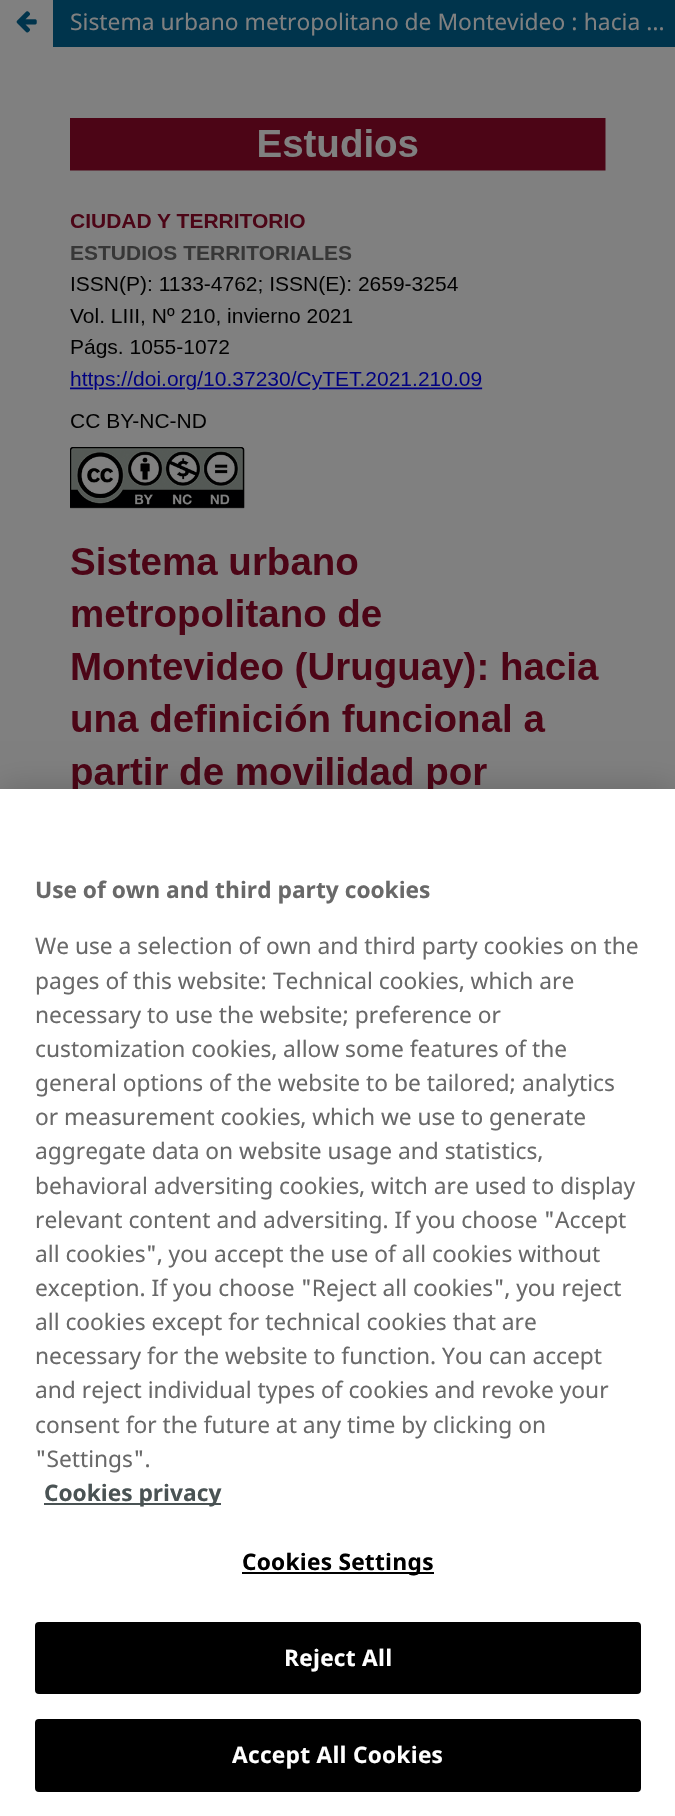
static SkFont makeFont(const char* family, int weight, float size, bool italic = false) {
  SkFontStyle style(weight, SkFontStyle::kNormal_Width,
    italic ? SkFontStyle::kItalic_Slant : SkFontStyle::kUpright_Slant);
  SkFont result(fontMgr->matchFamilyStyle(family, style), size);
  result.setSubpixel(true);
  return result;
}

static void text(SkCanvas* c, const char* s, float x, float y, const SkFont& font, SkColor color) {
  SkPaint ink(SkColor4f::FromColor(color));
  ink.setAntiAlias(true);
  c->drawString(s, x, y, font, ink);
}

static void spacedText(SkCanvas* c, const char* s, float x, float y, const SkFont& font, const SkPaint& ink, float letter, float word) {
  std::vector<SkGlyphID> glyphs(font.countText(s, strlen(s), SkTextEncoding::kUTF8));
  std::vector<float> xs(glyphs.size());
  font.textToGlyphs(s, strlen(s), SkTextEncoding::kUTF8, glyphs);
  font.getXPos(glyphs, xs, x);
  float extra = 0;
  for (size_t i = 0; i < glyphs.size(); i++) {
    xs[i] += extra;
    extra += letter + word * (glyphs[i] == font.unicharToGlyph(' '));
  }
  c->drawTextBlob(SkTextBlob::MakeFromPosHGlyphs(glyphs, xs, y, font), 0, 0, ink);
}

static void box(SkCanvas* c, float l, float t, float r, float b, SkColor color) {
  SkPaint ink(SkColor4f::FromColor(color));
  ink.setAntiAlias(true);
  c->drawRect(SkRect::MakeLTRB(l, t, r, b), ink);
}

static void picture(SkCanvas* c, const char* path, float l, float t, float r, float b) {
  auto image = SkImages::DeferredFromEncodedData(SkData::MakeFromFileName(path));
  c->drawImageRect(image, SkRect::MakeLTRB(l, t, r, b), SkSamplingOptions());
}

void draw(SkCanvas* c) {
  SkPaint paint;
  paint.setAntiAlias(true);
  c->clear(0xff808080);
  box(c, 53, 0, 675, 47, 0xff00344c);
  picture(c, "img_01.png", 16, 11, 37, 33);
  SkFont face1 = makeFont("Noto Sans", 400, 22.8f);
  text(c, "Sistema urbano metropolitano de Montevideo : hacia …", 70, 30, face1, 0xff808080);
  picture(c, "img_02.png", 70, 118, 606, 789);
  paint.setColor(0x33000000);
  paint.setMaskFilter(SkMaskFilter::MakeBlur(kNormal_SkBlurStyle, 16));
  c->drawRect(SkRect::MakeLTRB(0, 789, 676, 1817), paint);
  paint.setMaskFilter(nullptr);
  box(c, 0, 789, 675, 1816, 0xffffffff);
  SkFont face2 = makeFont("Noto Sans", 700, 22.75f);
  text(c, "Use of own and third party cookies", 35, 898, face2, 0xff696969);
  SkFont face3 = makeFont("Noto Sans", 400, 22.75f);
  text(c, "We use a selection of own and third party cookies on the", 35, 954, face3, 0xff696969);
  text(c, "pages of this website: Technical cookies, which are", 35, 989, face3, 0xff696969);
  text(c, "necessary to use the website; preference or", 35, 1023, face3, 0xff696969);
  text(c, "customization cookies, allow some features of the", 35, 1057, face3, 0xff696969);
  text(c, "general options of the website to be tailored; analytics", 35, 1091, face3, 0xff696969);
  text(c, "or measurement cookies, which we use to generate", 35, 1125, face3, 0xff696969);
  text(c, "aggregate data on website usage and statistics,", 35, 1159, face3, 0xff696969);
  text(c, "behavioral adversiting cookies, witch are used to display", 35, 1194, face3, 0xff696969);
  text(c, "relevant content and adversiting. If you choose \"Accept", 35, 1228, face3, 0xff696969);
  text(c, "all cookies\", you accept the use of all cookies without", 35, 1262, face3, 0xff696969);
  text(c, "exception. If you choose \"Reject all cookies\", you reject", 35, 1296, face3, 0xff696969);
  text(c, "all cookies except for technical cookies that are", 35, 1330, face3, 0xff696969);
  text(c, "necessary for the website to function. You can accept", 35, 1364, face3, 0xff696969);
  text(c, "and reject individual types of cookies and revoke your", 35, 1398, face3, 0xff696969);
  text(c, "consent for the future at any time by clicking on", 35, 1433, face3, 0xff696969);
  text(c, "\"Settings\".", 35, 1467, face3, 0xff696969);
  box(c, 44, 1503, 221, 1505, 0xff4a5354);
  text(c, "Cookies privacy", 44, 1501, face2, 0xff4a5354);
  box(c, 242, 1572, 434, 1574, 0xff000000);
  paint.setColor(0xff000000);
  spacedText(c, "Cookies Settings", 242, 1570, face2, paint, 0.25f, 0);
  c->drawRoundRect(SkRect::MakeLTRB(36, 1623, 640, 1693), 3, 3, paint);
  paint.setStyle(SkPaint::kStroke_Style);
  paint.setStrokeWidth(2);
  c->drawRoundRect(SkRect::MakeLTRB(36, 1623, 640, 1693), 3, 3, paint);
  paint.setStyle(SkPaint::kFill_Style);
  paint.setColor(0xffffffff);
  spacedText(c, "Reject All", 284, 1666, face2, paint, 0.25f, 0);
  paint.setColor(0xff000000);
  c->drawRoundRect(SkRect::MakeLTRB(36, 1720, 640, 1791), 3, 3, paint);
  paint.setStyle(SkPaint::kStroke_Style);
  c->drawRoundRect(SkRect::MakeLTRB(36, 1720, 640, 1791), 3, 3, paint);
  paint.setStyle(SkPaint::kFill_Style);
  paint.setColor(0xffffffff);
  spacedText(c, "Accept All Cookies", 232, 1763, face2, paint, 0.25f, 0);
}
